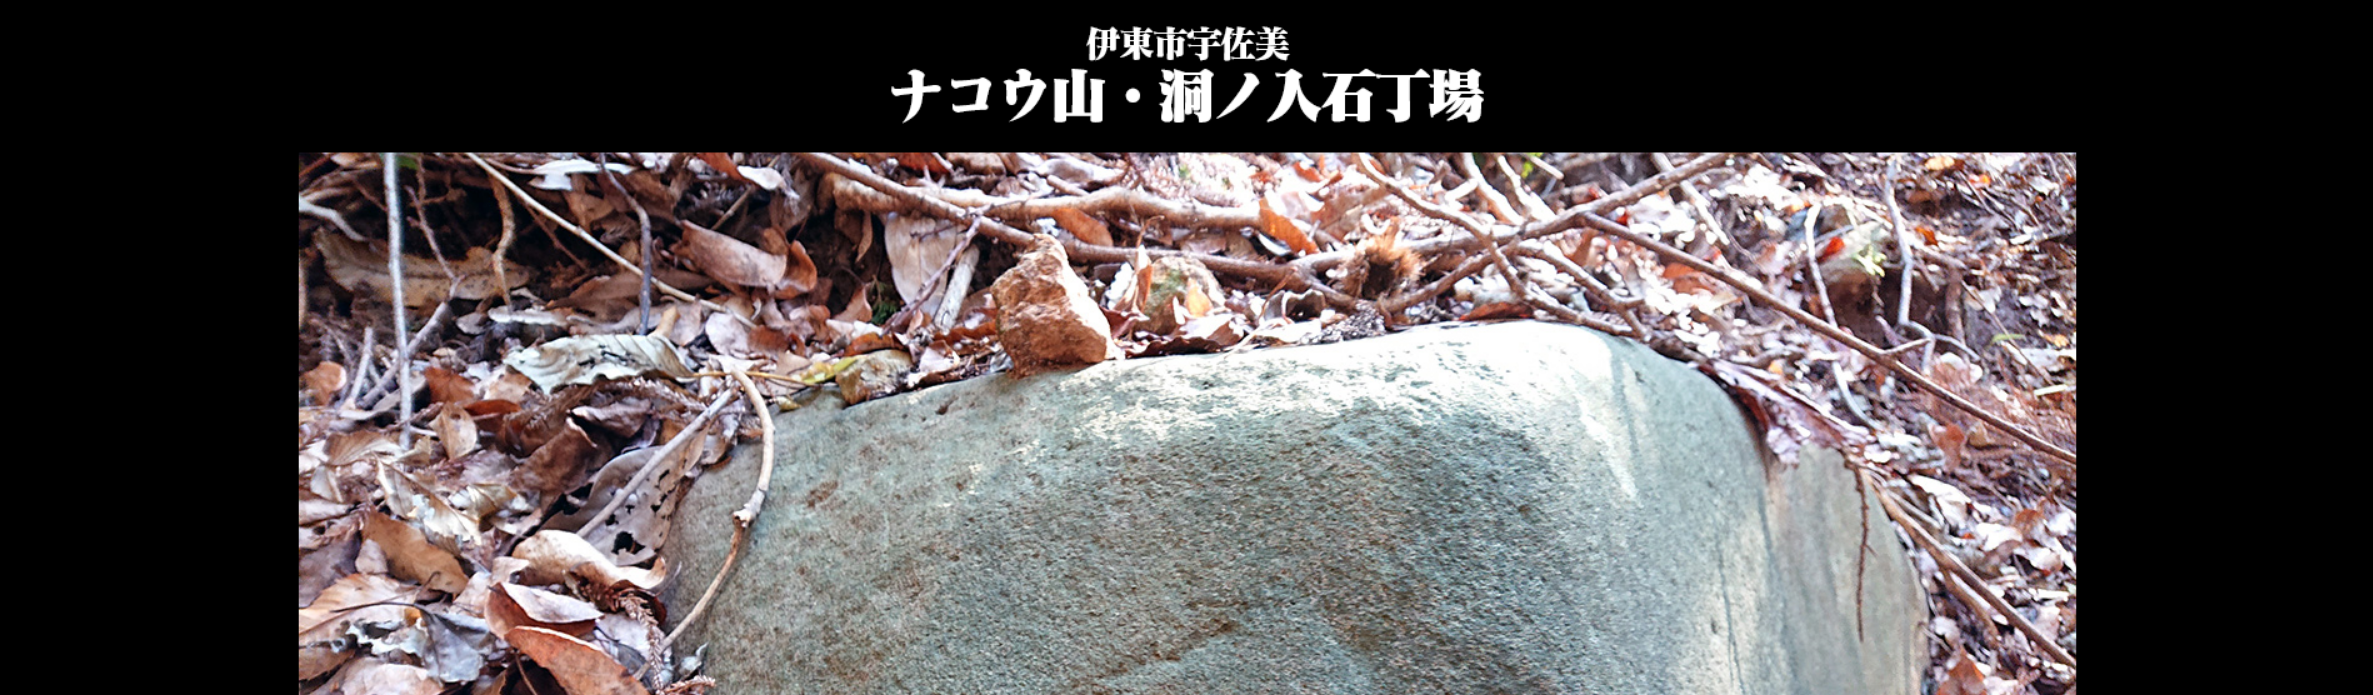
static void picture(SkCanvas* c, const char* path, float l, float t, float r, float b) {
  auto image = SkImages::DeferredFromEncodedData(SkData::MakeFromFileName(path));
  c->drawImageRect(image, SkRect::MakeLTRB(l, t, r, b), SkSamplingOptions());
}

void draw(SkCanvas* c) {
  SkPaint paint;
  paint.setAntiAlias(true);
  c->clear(0xff000000);
  picture(c, "img_01.png", 891, 26, 1484, 124);
  picture(c, "img_02.png", 298, 152, 2077, 695);
}
